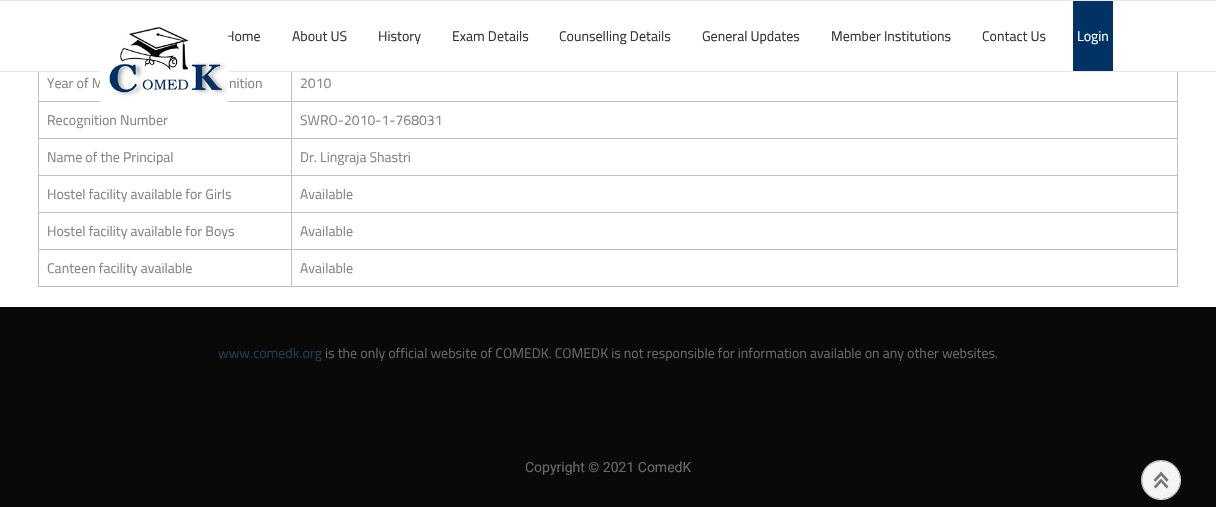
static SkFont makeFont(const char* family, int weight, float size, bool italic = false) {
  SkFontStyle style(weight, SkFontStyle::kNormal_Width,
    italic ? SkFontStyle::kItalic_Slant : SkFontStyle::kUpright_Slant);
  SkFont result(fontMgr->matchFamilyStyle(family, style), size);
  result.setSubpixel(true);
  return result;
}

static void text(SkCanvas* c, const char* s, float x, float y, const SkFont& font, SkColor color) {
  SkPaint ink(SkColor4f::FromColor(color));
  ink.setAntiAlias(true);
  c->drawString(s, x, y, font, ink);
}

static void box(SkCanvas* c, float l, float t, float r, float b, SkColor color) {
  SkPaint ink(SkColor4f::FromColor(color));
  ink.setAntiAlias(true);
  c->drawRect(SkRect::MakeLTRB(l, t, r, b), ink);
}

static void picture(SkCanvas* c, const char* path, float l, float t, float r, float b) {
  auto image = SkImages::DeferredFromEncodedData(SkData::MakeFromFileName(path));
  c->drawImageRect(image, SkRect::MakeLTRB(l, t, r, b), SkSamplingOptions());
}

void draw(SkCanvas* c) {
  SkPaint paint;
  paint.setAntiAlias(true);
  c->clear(0xffffffff);
  box(c, 291, 101, 1178, 102, 0xffc0c0c0);
  box(c, 291, 138, 1178, 139, 0xffc0c0c0);
  box(c, 291, 175, 1178, 176, 0xffc0c0c0);
  box(c, 291, 212, 1178, 213, 0xffc0c0c0);
  box(c, 291, 249, 1178, 250, 0xffc0c0c0);
  box(c, 1177, 249, 1178, 287, 0xffc0c0c0);
  box(c, 291, 286, 1178, 287, 0xffc0c0c0);
  box(c, 291, 249, 292, 287, 0xffc0c0c0);
  box(c, 38, 249, 292, 250, 0xffc0c0c0);
  box(c, 291, 212, 292, 250, 0xffc0c0c0);
  box(c, 38, 212, 292, 213, 0xffc0c0c0);
  box(c, 291, 175, 292, 213, 0xffc0c0c0);
  box(c, 38, 175, 292, 176, 0xffc0c0c0);
  box(c, 291, 138, 292, 176, 0xffc0c0c0);
  box(c, 38, 138, 292, 139, 0xffc0c0c0);
  box(c, 291, 101, 292, 139, 0xffc0c0c0);
  box(c, 38, 101, 292, 102, 0xffc0c0c0);
  box(c, 291, 64, 292, 102, 0xffc0c0c0);
  box(c, 38, 286, 292, 287, 0xffc0c0c0);
  box(c, 38, 249, 39, 287, 0xffc0c0c0);
  box(c, 38, 212, 39, 250, 0xffc0c0c0);
  box(c, 38, 175, 39, 213, 0xffc0c0c0);
  box(c, 38, 138, 39, 176, 0xffc0c0c0);
  box(c, 38, 64, 39, 139, 0xffc0c0c0);
  box(c, 1177, 212, 1178, 250, 0xffc0c0c0);
  box(c, 1177, 175, 1178, 213, 0xffc0c0c0);
  box(c, 1177, 138, 1178, 176, 0xffc0c0c0);
  box(c, 1177, 64, 1178, 139, 0xffc0c0c0);
  box(c, 38, 64, 1178, 71, 0xffffffff);
  box(c, 0, 0, 1216, 1, 0xffe7e7e7);
  box(c, 0, 71, 1216, 72, 0xffe7e7e7);
  SkFont face1 = makeFont("Titillium Web", 400, 14);
  text(c, "Home", 225, 41, face1, 0xff333333);
  text(c, "Year of M", 47, 88, face1, 0xff838383);
  picture(c, "img_01.png", 100, 27, 228, 102);
  text(c, "About US", 292, 41, face1, 0xff333333);
  text(c, "History", 378, 41, face1, 0xff333333);
  text(c, "Exam Details", 452, 41, face1, 0xff333333);
  text(c, "Counselling Details", 559, 41, face1, 0xff333333);
  text(c, "General Updates", 702, 41, face1, 0xff333333);
  text(c, "Member Institutions", 831, 41, face1, 0xff333333);
  text(c, "Contact Us", 982, 41, face1, 0xff333333);
  box(c, 1073, 1, 1113, 71, 0xff003363);
  text(c, "Login", 1077, 41, face1, 0xffffffff);
  text(c, "nition", 229, 88, face1, 0xff838383);
  text(c, "2010", 300, 88, face1, 0xff838383);
  text(c, "Recognition Number", 47, 125, face1, 0xff838383);
  text(c, "SWRO-2010-1-768031", 300, 125, face1, 0xff838383);
  text(c, "Name of the Principal", 47, 162, face1, 0xff838383);
  text(c, "Dr. Lingraja Shastri", 300, 162, face1, 0xff838383);
  text(c, "Hostel facility available for Girls", 47, 199, face1, 0xff838383);
  text(c, "Available", 300, 199, face1, 0xff838383);
  text(c, "Hostel facility available for Boys", 47, 236, face1, 0xff838383);
  text(c, "Available", 300, 236, face1, 0xff838383);
  text(c, "Canteen facility available", 47, 273, face1, 0xff838383);
  text(c, "Available", 300, 273, face1, 0xff838383);
  box(c, 0, 307, 1216, 507, 0xff090909);
  text(c, "www.comedk.org", 218, 358, face1, 0xff203d56);
  text(c, "is the only official website of COMEDK. COMEDK is not responsible for information available on any other websites.", 325, 358, face1, 0xff696969);
  SkFont face2 = makeFont("Roboto", 400, 14);
  text(c, "Copyright © 2021 ComedK", 525, 472, face2, 0xff696969);
  picture(c, "img_02.png", 1141, 460, 1181, 500);
}
